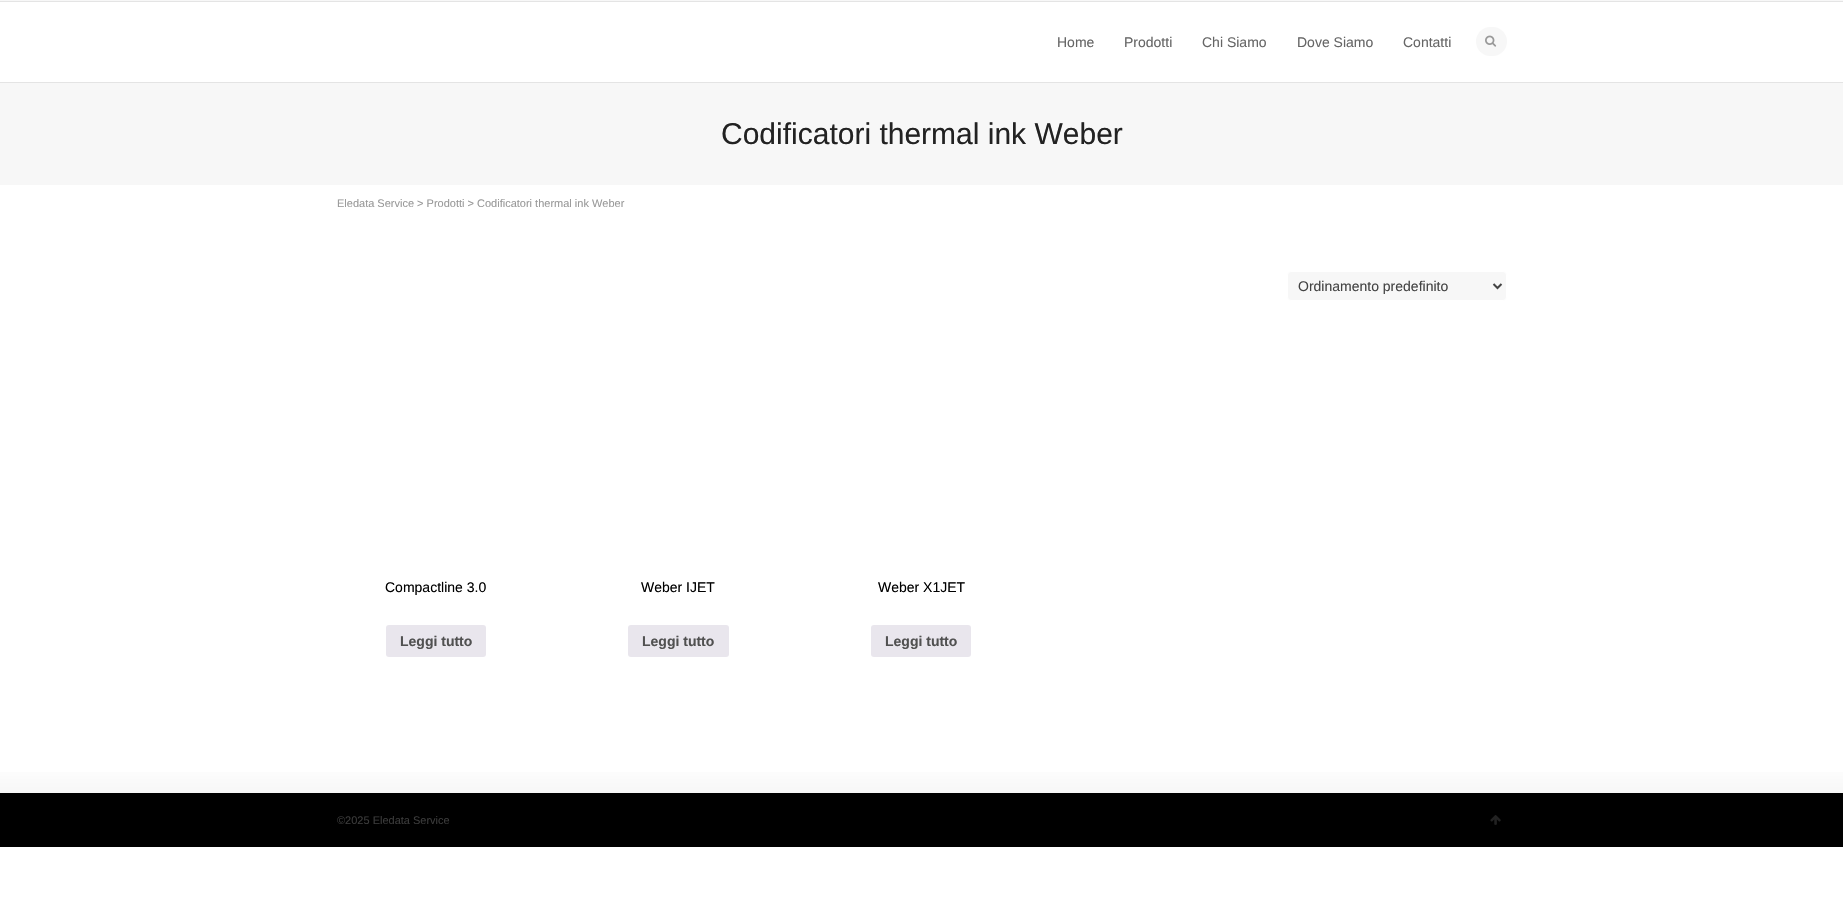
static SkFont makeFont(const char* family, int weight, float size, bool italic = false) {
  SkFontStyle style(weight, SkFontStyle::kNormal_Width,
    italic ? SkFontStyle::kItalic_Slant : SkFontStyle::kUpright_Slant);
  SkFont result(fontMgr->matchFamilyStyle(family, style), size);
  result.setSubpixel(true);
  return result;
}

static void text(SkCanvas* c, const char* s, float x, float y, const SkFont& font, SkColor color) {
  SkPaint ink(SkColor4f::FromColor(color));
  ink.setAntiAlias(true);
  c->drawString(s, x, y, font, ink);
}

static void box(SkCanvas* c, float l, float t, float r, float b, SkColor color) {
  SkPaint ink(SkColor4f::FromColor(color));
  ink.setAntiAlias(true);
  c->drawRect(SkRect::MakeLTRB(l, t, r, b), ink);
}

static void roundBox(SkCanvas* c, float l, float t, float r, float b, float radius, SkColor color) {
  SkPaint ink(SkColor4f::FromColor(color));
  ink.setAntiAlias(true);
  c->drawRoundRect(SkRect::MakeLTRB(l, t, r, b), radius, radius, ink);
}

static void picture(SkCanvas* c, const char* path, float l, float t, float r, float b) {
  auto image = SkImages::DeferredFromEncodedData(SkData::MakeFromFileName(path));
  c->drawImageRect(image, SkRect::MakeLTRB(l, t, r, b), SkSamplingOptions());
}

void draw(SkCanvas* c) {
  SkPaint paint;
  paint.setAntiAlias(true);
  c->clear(0xffffffff);
  box(c, 0, 0, 1843, 1, 0xfff7f7f7);
  box(c, 0, 1, 1843, 2, 0xffe4e4e4);
  box(c, 0, 82, 1843, 83, 0xffe4e4e4);
  SkFont face1 = makeFont("Liberation Sans", 400, 14);
  text(c, "Home", 1057, 47, face1, 0xff666666);
  text(c, "Prodotti", 1124, 47, face1, 0xff666666);
  text(c, "Chi Siamo", 1202, 47, face1, 0xff666666);
  text(c, "Dove Siamo", 1297, 47, face1, 0xff666666);
  text(c, "Contatti", 1403, 47, face1, 0xff666666);
  roundBox(c, 1476, 27, 1507, 56, 14.5f, 0xfff7f7f7);
  picture(c, "img_01.png", 1485, 35, 1497, 47);
  box(c, 0, 83, 1843, 185, 0xfff7f7f7);
  SkFont face2 = makeFont("Liberation Sans", 400, 30);
  text(c, "Codificatori thermal ink Weber", 721, 144, face2, 0xff222222);
  SkFont face3 = makeFont("Liberation Sans", 400, 11);
  text(c, "Eledata Service > Prodotti > Codificatori thermal ink Weber", 337, 207, face3, 0xff999999);
  paint.setColor(0xfff7f7f7);
  c->drawRoundRect(SkRect::MakeLTRB(1287.5f, 271.5f, 1506.5f, 300.5f), 3.5f, 3.5f, paint);
  paint.setStyle(SkPaint::kStroke_Style);
  paint.setStrokeWidth(1);
  paint.setColor(0xffffffff);
  c->drawRoundRect(SkRect::MakeLTRB(1287.5f, 271.5f, 1506.5f, 300.5f), 3.5f, 3.5f, paint);
  paint.setStrokeWidth(2);
  paint.setColor(0xff444444);
  c->drawPath(SkPathBuilder().moveTo(1493.5f, 284).lineTo(1497.5f, 288).lineTo(1501.5f, 284).detach(), paint);
  text(c, "Ordinamento predefinito", 1298, 291, face1, 0xff444444);
  text(c, "Compactline 3.0", 385, 592, face1, 0xff000000);
  roundBox(c, 386, 625, 486, 657, 3, 0xffe9e6ed);
  SkFont face4 = makeFont("Liberation Sans", 700, 14);
  text(c, "Leggi tutto", 400, 646, face4, 0xff515151);
  text(c, "Weber IJET", 641, 592, face1, 0xff000000);
  roundBox(c, 628, 625, 729, 657, 3, 0xffe9e6ed);
  text(c, "Leggi tutto", 642, 646, face4, 0xff515151);
  text(c, "Weber X1JET", 878, 592, face1, 0xff000000);
  roundBox(c, 871, 625, 971, 657, 3, 0xffe9e6ed);
  text(c, "Leggi tutto", 885, 646, face4, 0xff515151);
  paint.setStyle(SkPaint::kFill_Style);
  {
    const SkColor colors[] = {0xffffffff, 0xfff7f7f7};
    const float stops[] = {0, 1};
    const SkPoint ends[] = {{922, 762}, {922, 793}};
    paint.setShader(SkGradientShader::MakeLinear(ends, colors, stops, 2, SkTileMode::kClamp));
    paint.setAlpha(255);
  }
  c->drawRect(SkRect::MakeLTRB(0, 772, 1843, 793), paint);
  box(c, 0, 793, 1843, 847, 0xff000000);
  text(c, "©2025 Eledata Service", 337, 824, face3, 0xff3a3a3a);
  picture(c, "img_02.png", 1490, 815, 1501, 825);
}
